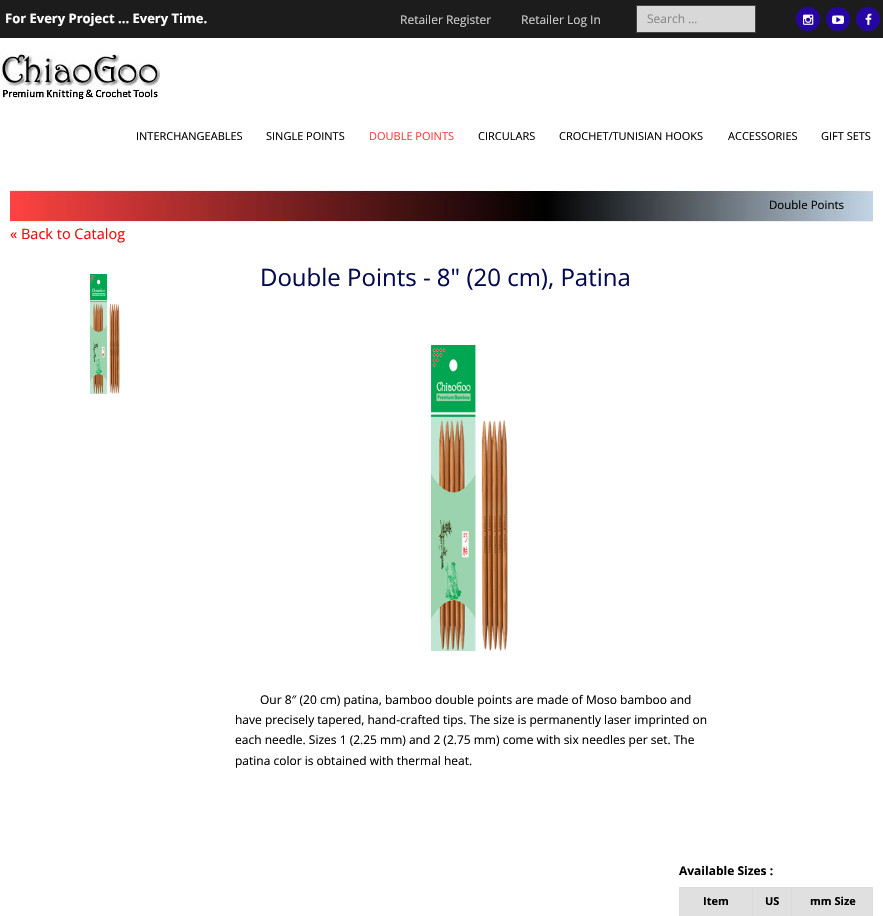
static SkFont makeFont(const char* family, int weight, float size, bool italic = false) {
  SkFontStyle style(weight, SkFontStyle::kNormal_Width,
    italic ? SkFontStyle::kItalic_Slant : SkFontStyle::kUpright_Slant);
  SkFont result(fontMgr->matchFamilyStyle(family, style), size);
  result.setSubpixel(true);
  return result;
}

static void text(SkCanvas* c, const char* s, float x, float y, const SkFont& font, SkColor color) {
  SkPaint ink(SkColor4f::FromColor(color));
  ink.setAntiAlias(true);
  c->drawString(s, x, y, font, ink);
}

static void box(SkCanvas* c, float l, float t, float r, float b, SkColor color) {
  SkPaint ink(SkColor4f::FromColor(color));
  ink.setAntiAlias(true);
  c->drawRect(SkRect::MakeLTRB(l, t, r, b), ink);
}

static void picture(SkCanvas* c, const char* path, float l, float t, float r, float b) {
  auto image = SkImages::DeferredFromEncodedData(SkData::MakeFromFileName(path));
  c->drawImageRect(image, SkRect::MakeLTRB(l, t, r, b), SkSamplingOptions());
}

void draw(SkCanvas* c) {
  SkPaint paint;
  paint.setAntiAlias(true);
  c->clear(0xffffffff);
  box(c, 0, 0, 883, 38, 0xff1c1c1c);
  SkFont face1 = makeFont("Open Sans", 700, 13);
  text(c, "For Every Project ... Every Time.", 5, 23, face1, 0xffffffff);
  SkFont face2 = makeFont("Open Sans", 400, 12);
  text(c, "Retailer Register", 400, 24, face2, 0xffcccccc);
  text(c, "Retailer Log In", 521, 24, face2, 0xffcccccc);
  paint.setColor(0xffd8d8d8);
  c->drawRect(SkRect::MakeLTRB(636.5f, 5.5f, 755.5f, 32.5f), paint);
  paint.setStyle(SkPaint::kStroke_Style);
  paint.setStrokeWidth(1);
  paint.setColor(0xff444444);
  c->drawRect(SkRect::MakeLTRB(636.5f, 5.5f, 755.5f, 32.5f), paint);
  text(c, "Search …", 647, 23, face2, 0xff888888);
  paint.setStyle(SkPaint::kFill_Style);
  paint.setColor(0xff2606a3);
  c->drawCircle(808, 19, 12, paint);
  picture(c, "img_01.png", 803, 14, 814, 25);
  c->drawCircle(838, 19, 12, paint);
  picture(c, "img_02.png", 832, 15, 844, 24);
  c->drawCircle(868, 19, 12, paint);
  picture(c, "img_03.png", 865, 13, 872, 25);
  picture(c, "img_04.png", 0, 51, 160, 99);
  SkFont face3 = makeFont("Open Sans", 400, 11);
  text(c, "INTERCHANGEABLES", 136, 140, face3, 0xff000000);
  text(c, "SINGLE POINTS", 266, 140, face3, 0xff000000);
  text(c, "DOUBLE POINTS", 369, 140, face3, 0xfff33f3f);
  text(c, "CIRCULARS", 478, 140, face3, 0xff000000);
  text(c, "CROCHET/TUNISIAN HOOKS", 559, 140, face3, 0xff000000);
  text(c, "ACCESSORIES", 728, 140, face3, 0xff000000);
  text(c, "GIFT SETS", 821, 140, face3, 0xff000000);
  picture(c, "img_05.png", 10, 190, 873, 221);
  SkFont face4 = makeFont("Open Sans", 400, 11.5f);
  text(c, "Double Points", 769, 209, face4, 0xff000000);
  box(c, 10, 221, 873, 222, 0xffeeeeee);
  SkFont face5 = makeFont("Open Sans", 400, 14.5f);
  text(c, "« Back to Catalog", 10, 239, face5, 0xfff80a0a);
  picture(c, "img_06.png", 90, 274, 120, 394);
  SkFont face6 = makeFont("Open Sans", 400, 24);
  text(c, "Double Points - 8\" (20 cm), Patina", 260, 286, face6, 0xff040a50);
  picture(c, "img_07.png", 431, 345, 508, 651);
  text(c, "Our 8″ (20 cm) patina, bamboo double points are made of Moso bamboo and", 260, 704, face2, 0xff000000);
  text(c, "have precisely tapered, hand-crafted tips. The size is permanently laser imprinted on", 235, 724, face2, 0xff000000);
  text(c, "each needle. Sizes 1 (2.25 mm) and 2 (2.75 mm) come with six needles per set. The", 235, 744, face2, 0xff000000);
  text(c, "patina color is obtained with thermal heat.", 235, 765, face2, 0xff000000);
  SkFont face7 = makeFont("Open Sans", 700, 12);
  text(c, "Available Sizes :", 679, 875, face7, 0xff000000);
  box(c, 679, 887, 873, 888, 0xffdddddd);
  box(c, 872, 887, 873, 916, 0xffdddddd);
  box(c, 679, 887, 680, 916, 0xffdddddd);
  box(c, 680, 888, 872, 916, 0xffe0e0e0);
  box(c, 752, 887, 753, 916, 0xffdddddd);
  SkFont face8 = makeFont("Open Sans", 700, 11);
  text(c, "Item", 703, 905, face8, 0xff000000);
  box(c, 791, 887, 792, 916, 0xffdddddd);
  text(c, "US", 765, 905, face8, 0xff000000);
  text(c, "mm Size", 810, 905, face8, 0xff000000);
}
